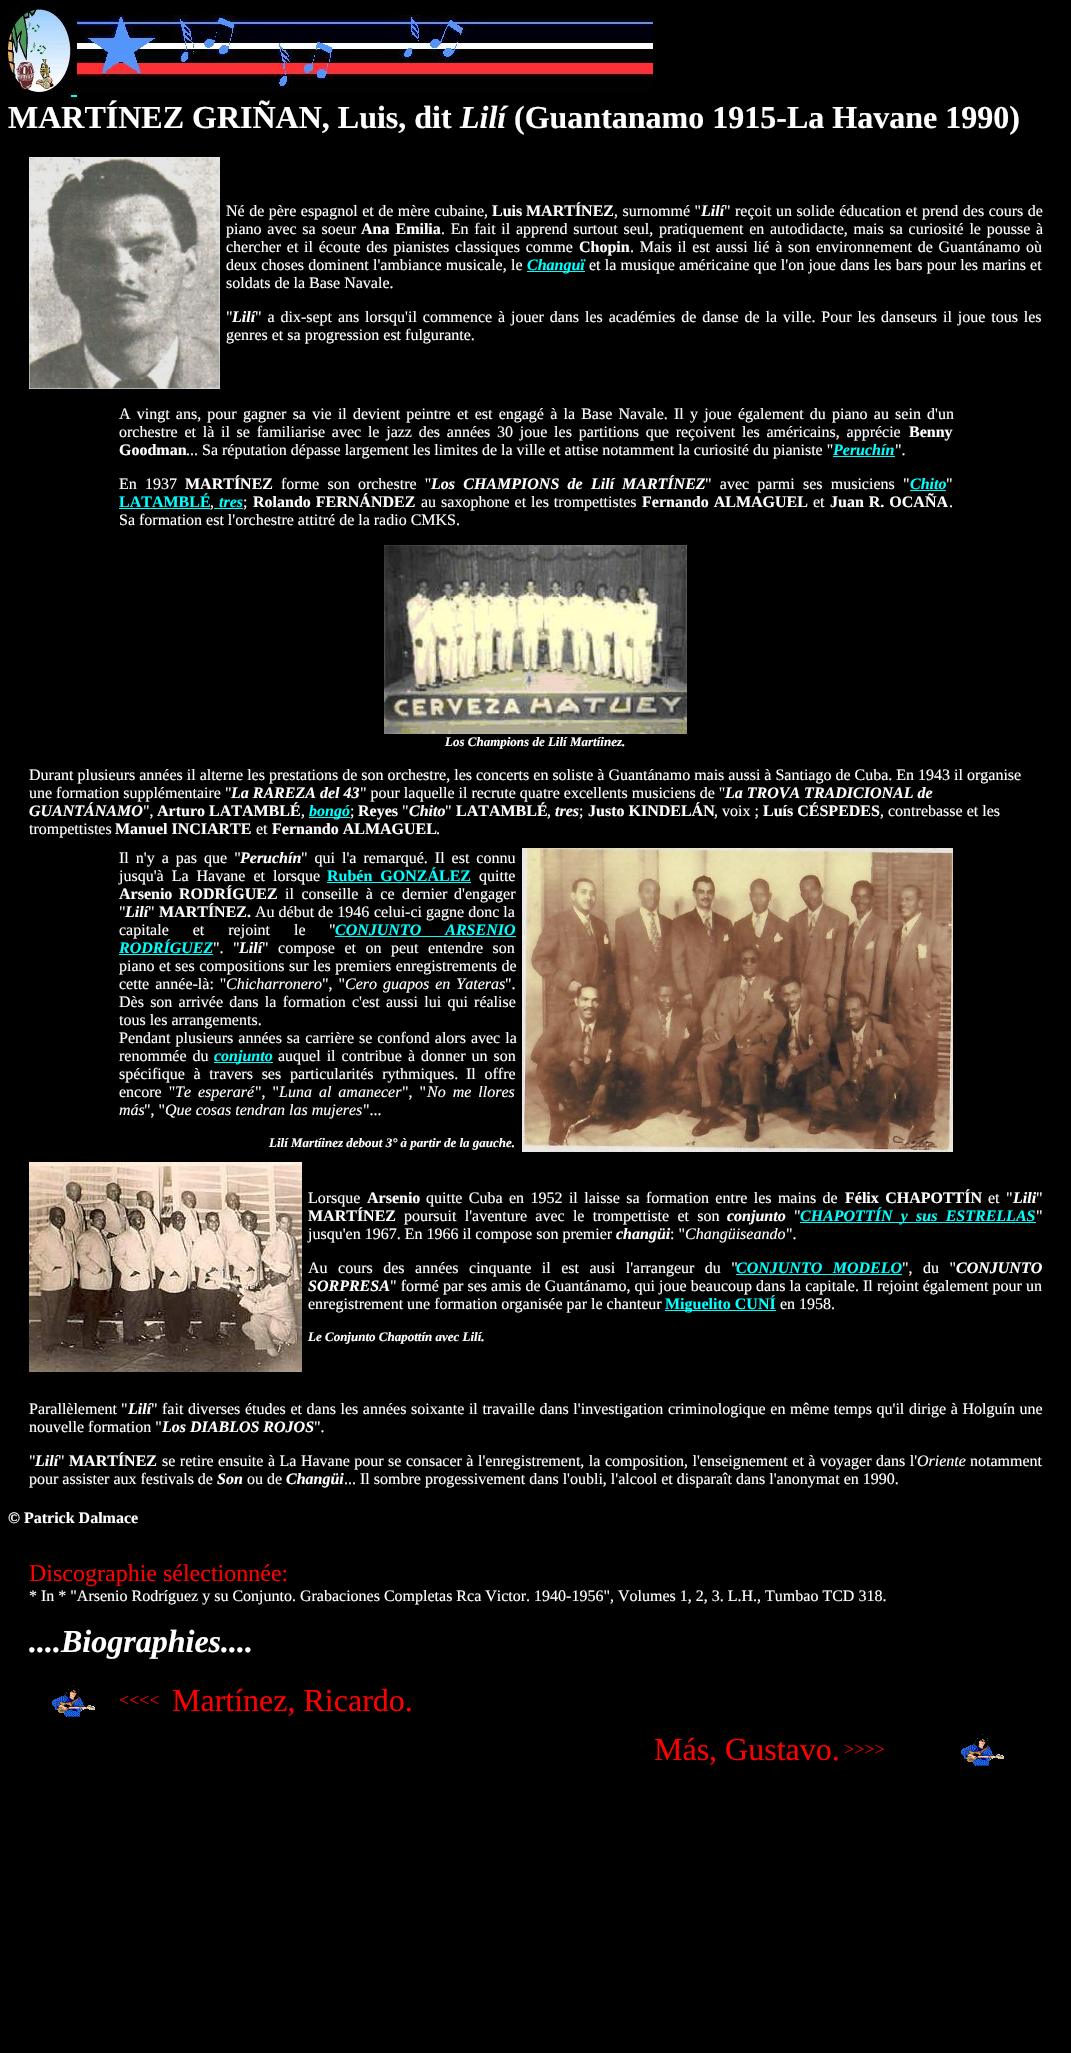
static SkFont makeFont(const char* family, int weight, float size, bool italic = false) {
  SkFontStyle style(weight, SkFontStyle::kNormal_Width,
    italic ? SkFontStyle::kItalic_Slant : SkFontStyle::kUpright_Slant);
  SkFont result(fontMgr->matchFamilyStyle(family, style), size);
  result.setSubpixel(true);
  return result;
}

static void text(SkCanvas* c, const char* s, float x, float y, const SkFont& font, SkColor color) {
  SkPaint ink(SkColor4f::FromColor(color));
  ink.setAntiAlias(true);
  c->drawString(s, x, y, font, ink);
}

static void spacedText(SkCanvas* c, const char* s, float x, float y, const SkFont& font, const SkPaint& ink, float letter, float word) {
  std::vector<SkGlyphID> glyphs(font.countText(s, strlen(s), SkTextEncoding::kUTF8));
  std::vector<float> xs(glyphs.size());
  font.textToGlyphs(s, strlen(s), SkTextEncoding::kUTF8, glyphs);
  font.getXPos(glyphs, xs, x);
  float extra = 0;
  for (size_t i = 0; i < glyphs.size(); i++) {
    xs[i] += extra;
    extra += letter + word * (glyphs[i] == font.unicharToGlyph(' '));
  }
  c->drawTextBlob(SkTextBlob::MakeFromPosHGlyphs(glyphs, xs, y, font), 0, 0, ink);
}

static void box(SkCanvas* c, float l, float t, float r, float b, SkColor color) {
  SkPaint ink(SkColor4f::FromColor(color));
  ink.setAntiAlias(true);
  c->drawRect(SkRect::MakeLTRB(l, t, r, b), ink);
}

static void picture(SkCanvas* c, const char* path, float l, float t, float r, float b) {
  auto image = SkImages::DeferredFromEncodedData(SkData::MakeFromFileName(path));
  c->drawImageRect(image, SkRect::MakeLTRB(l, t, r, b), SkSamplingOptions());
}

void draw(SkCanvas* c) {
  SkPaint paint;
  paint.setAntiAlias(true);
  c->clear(0xff000000);
  picture(c, "img_01.png", 8, 8, 71, 93);
  picture(c, "img_02.png", 77, 15, 653, 93);
  box(c, 71, 95, 77, 97, 0xff00ffff);
  SkFont face1 = makeFont("Liberation Serif", 700, 32);
  text(c, "MARTÍNEZ GRIÑAN, Luis, dit", 8, 128, face1, 0xffffffff);
  SkFont face2 = makeFont("Liberation Serif", 700, 32, true);
  text(c, "Lilí", 460, 128, face2, 0xffffffff);
  text(c, "(Guantanamo 1915-La Havane 1990)", 514, 128, face1, 0xffffffff);
  picture(c, "img_03.png", 29, 157, 220, 389);
  SkFont face3 = makeFont("Liberation Serif", 400, 16);
  paint.setColor(0xffffffff);
  spacedText(c, "Né de père espagnol et de mère cubaine,", 226, 216, face3, paint, 0, 0.5f);
  SkFont face4 = makeFont("Liberation Serif", 700, 16);
  text(c, "Luis", 492, 216, face4, 0xffffffff);
  text(c, "MARTÍNEZ", 526, 216, face4, 0xffffffff);
  spacedText(c, ", surnommé \"", 614, 216, face3, paint, 0, 0.5f);
  SkFont face5 = makeFont("Liberation Serif", 700, 16, true);
  text(c, "Lilí", 701, 216, face5, 0xffffffff);
  spacedText(c, "\" reçoit un solide éducation et prend des cours de", 724, 216, face3, paint, 0, 0.5f);
  spacedText(c, "piano avec sa soeur", 226, 234, face3, paint, 0, 1.75f);
  spacedText(c, "Ana Emilia", 361, 234, face4, paint, 0, 2);
  spacedText(c, ". En fait il apprend surtout seul, pratiquement en autodidacte, mais sa curiosité le pousse à", 441, 234, face3, paint, 0, 1.75f);
  spacedText(c, "chercher et il écoute des pianistes classiques comme", 226, 252, face3, paint, 0, 1.75f);
  text(c, "Chopin", 579, 252, face4, 0xffffffff);
  spacedText(c, ". Mais il est aussi lié à son environnement de Guantánamo où", 630, 252, face3, paint, 0, 1.75f);
  spacedText(c, "deux choses dominent l'ambiance musicale, le", 226, 270, face3, paint, 0, 0.25f);
  box(c, 527, 271, 585, 272, 0xff00ffff);
  text(c, "Changuï", 527, 270, face5, 0xff00ffff);
  spacedText(c, "et la musique américaine que l'on joue dans les bars pour les marins et", 589, 270, face3, paint, 0, 0.25f);
  text(c, "soldats de la Base Navale.", 226, 288, face3, 0xffffffff);
  text(c, "\"", 226, 322, face3, 0xffffffff);
  text(c, "Lilí", 232, 322, face5, 0xffffffff);
  spacedText(c, "\" a dix-sept ans lorsqu'il commence à jouer dans les académies de danse de la ville. Pour les danseurs il joue tous les", 255, 322, face3, paint, 0, 1.9f);
  text(c, "genres et sa progression est fulgurante.", 226, 340, face3, 0xffffffff);
  spacedText(c, "A vingt ans, pour gagner sa vie il devient peintre et est engagé à la Base Navale. Il y joue également du piano au sein d'un", 119, 419, face3, paint, 0, 2.2f);
  spacedText(c, "orchestre et là il se familiarise avec le jazz des années 30 joue les partitions que reçoivent les américains, apprécie", 119, 437, face3, paint, 0, 2.75f);
  text(c, "Benny", 909, 437, face4, 0xffffffff);
  text(c, "Goodman", 119, 455, face4, 0xffffffff);
  text(c, "... Sa réputation dépasse largement les limites de la ville et attise notamment la curiosité du pianiste \"", 186, 455, face3, 0xffffffff);
  text(c, "Peruchín", 833, 455, face5, 0xff00ffff);
  box(c, 833, 456, 895, 457, 0xff00ffff);
  text(c, "\".", 895, 455, face3, 0xffffffff);
  spacedText(c, "En 1937", 119, 489, face3, paint, 0, 4.25f);
  text(c, "MARTÍNEZ", 185, 489, face4, 0xffffffff);
  spacedText(c, "forme son orchestre \"", 281, 489, face3, paint, 0, 4.25f);
  spacedText(c, "Los CHAMPIONS de", 431, 489, face5, paint, 0, 4.25f);
  text(c, "Lilí", 591, 489, face5, 0xffffffff);
  text(c, "MARTÍNEZ", 622, 489, face5, 0xffffffff);
  spacedText(c, "\" avec parmi ses musiciens \"", 705, 489, face3, paint, 0, 4.25f);
  text(c, "Chito", 910, 489, face5, 0xff00ffff);
  box(c, 910, 490, 946, 491, 0xff00ffff);
  text(c, "\"", 946, 489, face3, 0xffffffff);
  text(c, "LATAMBLÉ", 119, 507, face4, 0xff00ffff);
  box(c, 119, 508, 210, 509, 0xff00ffff);
  text(c, ",", 210, 507, face3, 0xffffffff);
  text(c, "tres", 219, 507, face5, 0xff00ffff);
  box(c, 214, 508, 243, 509, 0xff00ffff);
  text(c, ";", 243, 507, face3, 0xffffffff);
  spacedText(c, "Rolando FERNÁNDEZ", 253, 507, face4, paint, 0, 1);
  spacedText(c, "au saxophone et les trompettistes", 421, 507, face3, paint, 0, 1);
  spacedText(c, "Fernando ALMAGUEL", 642, 507, face4, paint, 0, 1);
  text(c, "et", 813, 507, face3, 0xffffffff);
  spacedText(c, "Juan R. OCAÑA", 830, 507, face4, paint, 0, 1);
  text(c, ".", 949, 507, face3, 0xffffffff);
  text(c, "Sa formation est l'orchestre attitré de la radio CMKS.", 119, 525, face3, 0xffffffff);
  picture(c, "img_04.png", 384, 545, 687, 734);
  SkFont face6 = makeFont("Liberation Serif", 700, 13, true);
  text(c, "Los Champions de Lilí Martíinez.", 445, 746, face6, 0xffffffff);
  text(c, "Durant plusieurs années il alterne les prestations de son orchestre, les concerts en soliste à Guantánamo mais aussi à Santiago de Cuba. En 1943 il organise", 29, 780, face3, 0xffffffff);
  text(c, "une formation supplémentaire \"", 29, 798, face3, 0xffffffff);
  text(c, "La RAREZA del 43", 231, 798, face5, 0xffffffff);
  text(c, "\" pour laquelle il recrute quatre excellents musiciens de \"", 360, 798, face3, 0xffffffff);
  text(c, "La TROVA TRADICIONAL de", 725, 798, face5, 0xffffffff);
  text(c, "GUANTÁNAMO", 29, 816, face5, 0xffffffff);
  text(c, "\",", 143, 816, face3, 0xffffffff);
  text(c, "Arturo LATAMBLÉ", 157, 816, face4, 0xffffffff);
  text(c, ",", 301, 816, face3, 0xffffffff);
  box(c, 309, 817, 350, 818, 0xff00ffff);
  text(c, "bongó", 309, 816, face5, 0xff00ffff);
  text(c, ";", 350, 816, face3, 0xffffffff);
  text(c, "Reyes", 358, 816, face4, 0xffffffff);
  text(c, "\"", 402, 816, face3, 0xffffffff);
  text(c, "Chito", 409, 816, face5, 0xffffffff);
  text(c, "\"", 445, 816, face3, 0xffffffff);
  text(c, "LATAMBLÉ", 456, 816, face4, 0xffffffff);
  text(c, ",", 547, 816, face3, 0xffffffff);
  text(c, "tres", 555, 816, face5, 0xffffffff);
  text(c, ";", 579, 816, face3, 0xffffffff);
  text(c, "Justo KINDELÁN", 588, 816, face4, 0xffffffff);
  text(c, ", voix ;", 714, 816, face3, 0xffffffff);
  text(c, "Luís CÉSPEDES", 763, 816, face4, 0xffffffff);
  text(c, ", contrebasse et les", 880, 816, face3, 0xffffffff);
  text(c, "trompettistes", 29, 834, face3, 0xffffffff);
  text(c, "Manuel INCIARTE", 115, 834, face4, 0xffffffff);
  text(c, "et", 256, 834, face3, 0xffffffff);
  text(c, "Fernando ALMAGUEL", 272, 834, face4, 0xffffffff);
  text(c, ".", 436, 834, face3, 0xffffffff);
  spacedText(c, "Il n'y a pas que \"", 119, 863, face3, paint, 0, 3);
  text(c, "Peruchín", 240, 863, face5, 0xffffffff);
  spacedText(c, "\" qui l'a remarqué. Il est connu", 301, 863, face3, paint, 0, 3);
  spacedText(c, "jusqu'à La Havane et lorsque", 119, 881, face3, paint, 0, 4);
  paint.setColor(0xff00ffff);
  spacedText(c, "Rubén GONZÁLEZ", 327, 881, face4, paint, 0, 4);
  box(c, 327, 882, 471, 883, 0xff00ffff);
  text(c, "quitte", 479, 881, face3, 0xffffffff);
  text(c, "Arsenio", 119, 899, face4, 0xffffffff);
  text(c, "RODRÍGUEZ", 179, 899, face4, 0xffffffff);
  paint.setColor(0xffffffff);
  spacedText(c, "il conseille à ce dernier", 285, 899, face3, paint, 0, 3.5f);
  text(c, "d'engager", 454, 899, face3, 0xffffffff);
  text(c, "\"", 119, 917, face3, 0xffffffff);
  text(c, "Lilí", 125, 917, face5, 0xffffffff);
  text(c, "\"", 148, 917, face3, 0xffffffff);
  text(c, "MARTÍNEZ.", 159, 917, face4, 0xffffffff);
  text(c, "Au début de 1946", 255, 917, face3, 0xffffffff);
  text(c, "celui-ci gagne donc la", 374, 917, face3, 0xffffffff);
  spacedText(c, "capitale et rejoint le", 119, 935, face3, paint, 0, 20);
  text(c, "\"", 329, 935, face3, 0xffffffff);
  paint.setColor(0xff00ffff);
  spacedText(c, "CONJUNTO ARSENIO", 335, 935, face5, paint, 0, 20);
  box(c, 335, 936, 516, 937, 0xff00ffff);
  text(c, "RODRÍGUEZ", 119, 953, face5, 0xff00ffff);
  text(c, "\".", 213, 953, face3, 0xffffffff);
  box(c, 119, 954, 213, 955, 0xff00ffff);
  text(c, "\"", 233, 953, face3, 0xffffffff);
  text(c, "Lilí", 239, 953, face5, 0xffffffff);
  paint.setColor(0xffffffff);
  spacedText(c, "\" compose et on peut entendre son", 262, 953, face3, paint, 0, 5.5f);
  spacedText(c, "piano et ses compositions sur les premiers enregistrements de", 119, 971, face3, paint, 0, 0.5f);
  spacedText(c, "cette année-là: \"", 119, 989, face3, paint, 0, 2);
  SkFont face7 = makeFont("Liberation Serif", 400, 16, true);
  text(c, "Chicharronero", 226, 989, face7, 0xffffffff);
  spacedText(c, "\", \"", 322, 989, face3, paint, 0, 2);
  spacedText(c, "Cero guapos en Yateras", 345, 989, face7, paint, 0, 2);
  text(c, "\".", 505, 989, face3, 0xffffffff);
  spacedText(c, "Dès son arrivée dans la formation c'est aussi lui qui réalise", 119, 1007, face3, paint, 0, 2.25f);
  text(c, "tous les arrangements.", 119, 1025, face3, 0xffffffff);
  spacedText(c, "Pendant plusieurs années sa carrière se confond alors avec la", 119, 1043, face3, paint, 0, 1);
  spacedText(c, "renommée du", 119, 1061, face3, paint, 0, 2);
  box(c, 214, 1062, 273, 1063, 0xff00ffff);
  text(c, "conjunto", 214, 1061, face5, 0xff00ffff);
  spacedText(c, "auquel il contribue à donner un son", 278, 1061, face3, paint, 0, 2);
  spacedText(c, "spécifique à travers ses particularités rythmiques.", 119, 1079, face3, paint, 0, 4.75f);
  spacedText(c, "Il offre", 466, 1079, face3, paint, 0, 4.75f);
  spacedText(c, "encore \"", 119, 1097, face3, paint, 0, 3);
  spacedText(c, "Te esperaré", 175, 1097, face7, paint, 0, 3);
  spacedText(c, "\", \"", 255, 1097, face3, paint, 0, 3);
  spacedText(c, "Luna al amanecer", 279, 1097, face7, paint, 0, 3);
  spacedText(c, "\", \"", 402, 1097, face3, paint, 0, 3);
  spacedText(c, "No me llores", 427, 1097, face7, paint, 0, 3);
  text(c, "más", 119, 1115, face7, 0xffffffff);
  text(c, "\", \"", 144, 1115, face3, 0xffffffff);
  text(c, "Que cosas tendran las mujeres", 165, 1115, face7, 0xffffffff);
  text(c, "\"...", 363, 1115, face3, 0xffffffff);
  text(c, "Lilí Martíinez debout 3° à partir de la gauche.", 269, 1147, face6, 0xffffffff);
  picture(c, "img_05.png", 522, 848, 953, 1152);
  picture(c, "img_06.png", 29, 1162, 302, 1372);
  text(c, "Lorsque", 308, 1203, face3, 0xffffffff);
  text(c, "Arsenio", 367, 1203, face4, 0xffffffff);
  spacedText(c, "quitte Cuba en 1952 il laisse sa formation entre les mains de", 426, 1203, face3, paint, 0, 2.4f);
  spacedText(c, "Félix CHAPOTTÍN", 845, 1203, face4, paint, 0, 2.4f);
  spacedText(c, "et \"", 988, 1203, face3, paint, 0, 2.4f);
  text(c, "Lili", 1013, 1203, face5, 0xffffffff);
  text(c, "\"", 1036, 1203, face3, 0xffffffff);
  text(c, "MARTÍNEZ", 308, 1221, face4, 0xffffffff);
  spacedText(c, "poursuit l'aventure avec le trompettiste et son", 404, 1221, face3, paint, 0, 4.25f);
  text(c, "conjunto", 727, 1221, face5, 0xffffffff);
  text(c, "\"", 794, 1221, face3, 0xffffffff);
  box(c, 800, 1222, 1036, 1223, 0xff00ffff);
  paint.setColor(0xff00ffff);
  spacedText(c, "CHAPOTTÍN y sus ESTRELLAS", 800, 1221, face5, paint, 0, 4.25f);
  text(c, "\"", 1036, 1221, face3, 0xffffffff);
  text(c, "jusqu'en 1967. En 1966 il compose son premier", 308, 1239, face3, 0xffffffff);
  text(c, "changüi", 616, 1239, face5, 0xffffffff);
  text(c, ": \"", 670, 1239, face3, 0xffffffff);
  text(c, "Changüiseando", 685, 1239, face7, 0xffffffff);
  text(c, "\".", 786, 1239, face3, 0xffffffff);
  paint.setColor(0xffffffff);
  spacedText(c, "Au cours des années cinquante il est ausi l'arrangeur du \"", 308, 1273, face3, paint, 0, 6.5f);
  paint.setColor(0xff00ffff);
  spacedText(c, "CONJUNTO MODELO", 736, 1273, face5, paint, 0, 6.5f);
  box(c, 736, 1274, 902, 1275, 0xff00ffff);
  paint.setColor(0xffffffff);
  spacedText(c, "\", du \"", 902, 1273, face3, paint, 0, 6.5f);
  text(c, "CONJUNTO", 956, 1273, face5, 0xffffffff);
  text(c, "SORPRESA", 308, 1291, face5, 0xffffffff);
  spacedText(c, "\" formé par ses amis de Guantánamo, qui joue beaucoup dans la capitale. Il rejoint également pour un", 390, 1291, face3, paint, 0, 0.1f);
  text(c, "enregistrement une formation organisée par le chanteur", 308, 1309, face3, 0xffffffff);
  box(c, 665, 1310, 776, 1311, 0xff00ffff);
  text(c, "Miguelito CUNÍ", 665, 1309, face4, 0xff00ffff);
  text(c, "en 1958.", 780, 1309, face3, 0xffffffff);
  text(c, "Le Conjunto Chapottín avec Lilí.", 308, 1341, face6, 0xffffffff);
  text(c, "Parallèlement", 29, 1414, face3, 0xffffffff);
  text(c, "\"", 121, 1414, face3, 0xffffffff);
  text(c, "Lilí", 128, 1414, face5, 0xffffffff);
  text(c, "\"", 151, 1414, face3, 0xffffffff);
  spacedText(c, "fait diverses études et dans les années soixante il travaille dans l'investigation criminologique en même temps qu'il dirige à Holguín une", 162, 1414, face3, paint, 0, 0.6f);
  text(c, "nouvelle formation \"", 29, 1432, face3, 0xffffffff);
  text(c, "Los DIABLOS ROJOS", 162, 1432, face5, 0xffffffff);
  text(c, "\".", 314, 1432, face3, 0xffffffff);
  text(c, "\"", 29, 1466, face3, 0xffffffff);
  text(c, "Lilí", 35, 1466, face5, 0xffffffff);
  text(c, "\"", 58, 1466, face3, 0xffffffff);
  text(c, "MARTÍNEZ", 69, 1466, face4, 0xffffffff);
  spacedText(c, "se retire ensuite à La Havane pour se consacer à l'enregistrement, la composition, l'enseignement et à voyager dans l'", 162, 1466, face3, paint, 0, 0.5f);
  text(c, "Oriente", 917, 1466, face7, 0xffffffff);
  text(c, "notamment", 970, 1466, face3, 0xffffffff);
  text(c, "pour assister aux festivals de", 29, 1484, face3, 0xffffffff);
  text(c, "Son", 217, 1484, face5, 0xffffffff);
  text(c, "ou de", 247, 1484, face3, 0xffffffff);
  text(c, "Changüi", 286, 1484, face5, 0xffffffff);
  text(c, "... Il sombre progessivement dans l'oubli, l'alcool et disparaît dans l'anonymat en 1990.", 344, 1484, face3, 0xffffffff);
  text(c, "© Patrick Dalmace", 8, 1523, face4, 0xffffffff);
  SkFont face8 = makeFont("Liberation Serif", 400, 24);
  text(c, "Discographie sélectionnée:", 29, 1581, face8, 0xffff0000);
  text(c, "* In * \"Arsenio Rodríguez y su Conjunto. Grabaciones Completas Rca Victor. 1940-1956\", Volumes 1, 2, 3. L.H., Tumbao TCD 318.", 29, 1601, face3, 0xffffffff);
  text(c, "....Biographies....", 29, 1652, face2, 0xffffffff);
  picture(c, "img_07.png", 52, 1685, 95, 1717);
  SkFont face9 = makeFont("Liberation Serif", 400, 18);
  text(c, "<<<<", 119, 1706, face9, 0xffff0000);
  SkFont face10 = makeFont("Liberation Serif", 400, 32);
  text(c, "Martínez, Ricardo.", 172, 1711, face10, 0xffff0000);
  text(c, "Más, Gustavo.", 654, 1760, face10, 0xffff0000);
  text(c, ">>>>", 844, 1755, face9, 0xffff0000);
  picture(c, "img_07.png", 961, 1734, 1004, 1766);
}
